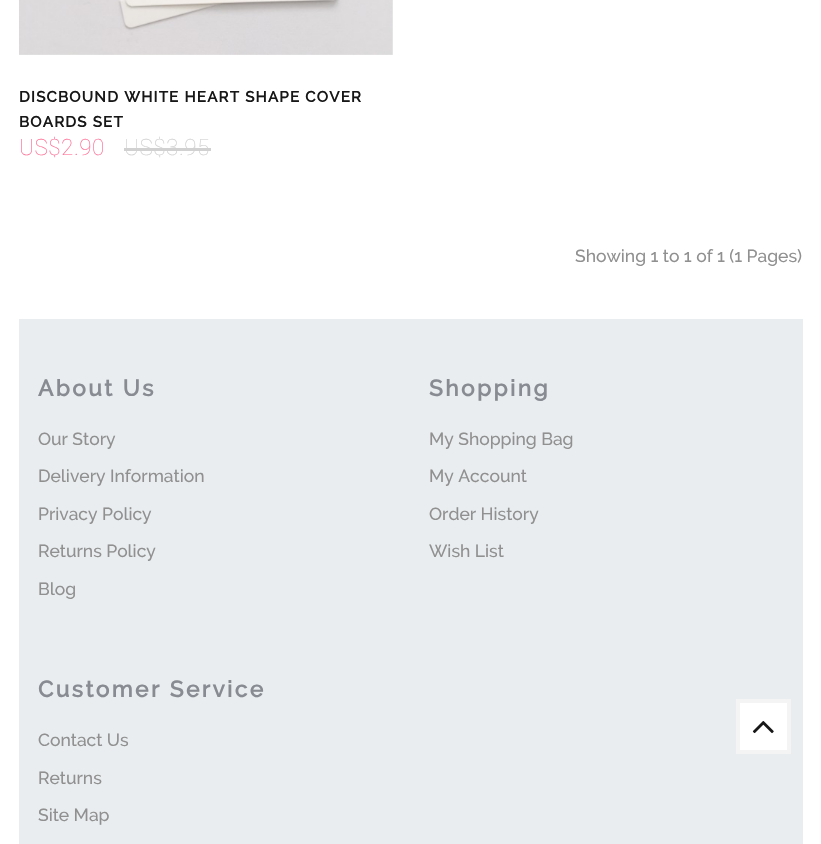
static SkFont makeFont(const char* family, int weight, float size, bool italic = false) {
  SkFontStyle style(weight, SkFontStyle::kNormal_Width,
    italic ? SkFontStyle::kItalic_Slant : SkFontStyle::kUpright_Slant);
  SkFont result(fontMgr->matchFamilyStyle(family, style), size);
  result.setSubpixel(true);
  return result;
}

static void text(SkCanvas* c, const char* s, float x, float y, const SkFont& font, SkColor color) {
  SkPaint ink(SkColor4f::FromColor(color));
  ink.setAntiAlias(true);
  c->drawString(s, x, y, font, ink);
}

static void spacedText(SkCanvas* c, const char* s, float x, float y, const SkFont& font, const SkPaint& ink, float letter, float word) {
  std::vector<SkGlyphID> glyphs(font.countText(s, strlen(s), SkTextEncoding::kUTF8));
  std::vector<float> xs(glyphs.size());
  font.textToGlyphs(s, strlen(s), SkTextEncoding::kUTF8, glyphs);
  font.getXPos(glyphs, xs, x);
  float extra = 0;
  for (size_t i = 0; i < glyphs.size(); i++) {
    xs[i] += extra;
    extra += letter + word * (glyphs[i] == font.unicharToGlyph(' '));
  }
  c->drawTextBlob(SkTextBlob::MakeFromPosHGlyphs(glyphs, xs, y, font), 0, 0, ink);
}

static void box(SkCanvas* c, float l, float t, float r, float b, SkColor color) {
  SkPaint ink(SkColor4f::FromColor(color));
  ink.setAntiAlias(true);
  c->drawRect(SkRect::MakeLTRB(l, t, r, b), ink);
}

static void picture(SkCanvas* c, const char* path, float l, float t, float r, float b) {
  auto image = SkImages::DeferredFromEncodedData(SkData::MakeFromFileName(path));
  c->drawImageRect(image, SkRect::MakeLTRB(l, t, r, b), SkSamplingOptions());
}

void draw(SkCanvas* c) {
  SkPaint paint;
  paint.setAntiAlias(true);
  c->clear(0xffffffff);
  box(c, 19, 0, 393, 55, 0xfff4f4f4);
  picture(c, "img_01.png", 19, 0, 393, 55);
  SkFont face1 = makeFont("Raleway", 700, 15);
  paint.setColor(0xff171717);
  spacedText(c, "DISCBOUND WHITE HEART SHAPE COVER", 19, 102, face1, paint, 1.25f, 0);
  spacedText(c, "BOARDS SET", 19, 127, face1, paint, 1.25f, 0);
  SkFont face2 = makeFont("Roboto", 100, 22.5f);
  paint.setColor(0xffff6c93);
  spacedText(c, "US$2.90", 19, 155, face2, paint, 0.5f, 0);
  paint.setColor(0xffd1d1d1);
  spacedText(c, "US$3.95", 124, 155, face2, paint, 0.5f, 0);
  box(c, 124, 148, 211, 151, 0xffd1d1d1);
  SkFont face3 = makeFont("Raleway", 500, 17.5f);
  text(c, "Showing 1 to 1 of 1 (1 Pages)", 575, 262, face3, 0xff909090);
  box(c, 19, 319, 803, 844, 0xffe9edef);
  SkFont face4 = makeFont("Raleway", 700, 22.5f);
  paint.setColor(0xff888b91);
  spacedText(c, "About Us", 38, 396, face4, paint, 2.5f, 0);
  text(c, "Our Story", 38, 445, face3, 0xff909090);
  text(c, "Delivery Information", 38, 482, face3, 0xff909090);
  text(c, "Privacy Policy", 38, 520, face3, 0xff909090);
  text(c, "Returns Policy", 38, 557, face3, 0xff909090);
  text(c, "Blog", 38, 595, face3, 0xff909090);
  spacedText(c, "Shopping", 429, 396, face4, paint, 2.5f, 0);
  text(c, "My Shopping Bag", 429, 445, face3, 0xff909090);
  text(c, "My Account", 429, 482, face3, 0xff909090);
  text(c, "Order History", 429, 520, face3, 0xff909090);
  text(c, "Wish List", 429, 557, face3, 0xff909090);
  spacedText(c, "Customer Service", 38, 697, face4, paint, 2.5f, 0);
  text(c, "Contact Us", 38, 746, face3, 0xff909090);
  text(c, "Returns", 38, 784, face3, 0xff909090);
  text(c, "Site Map", 38, 821, face3, 0xff909090);
  paint.setColor(0xffffffff);
  c->drawRect(SkRect::MakeLTRB(738, 701, 789, 752), paint);
  paint.setStyle(SkPaint::kStroke_Style);
  paint.setStrokeWidth(4);
  paint.setColor(0xfff4f4f4);
  c->drawRect(SkRect::MakeLTRB(738, 701, 789, 752), paint);
  picture(c, "img_02.png", 752, 721, 774, 734);
}
